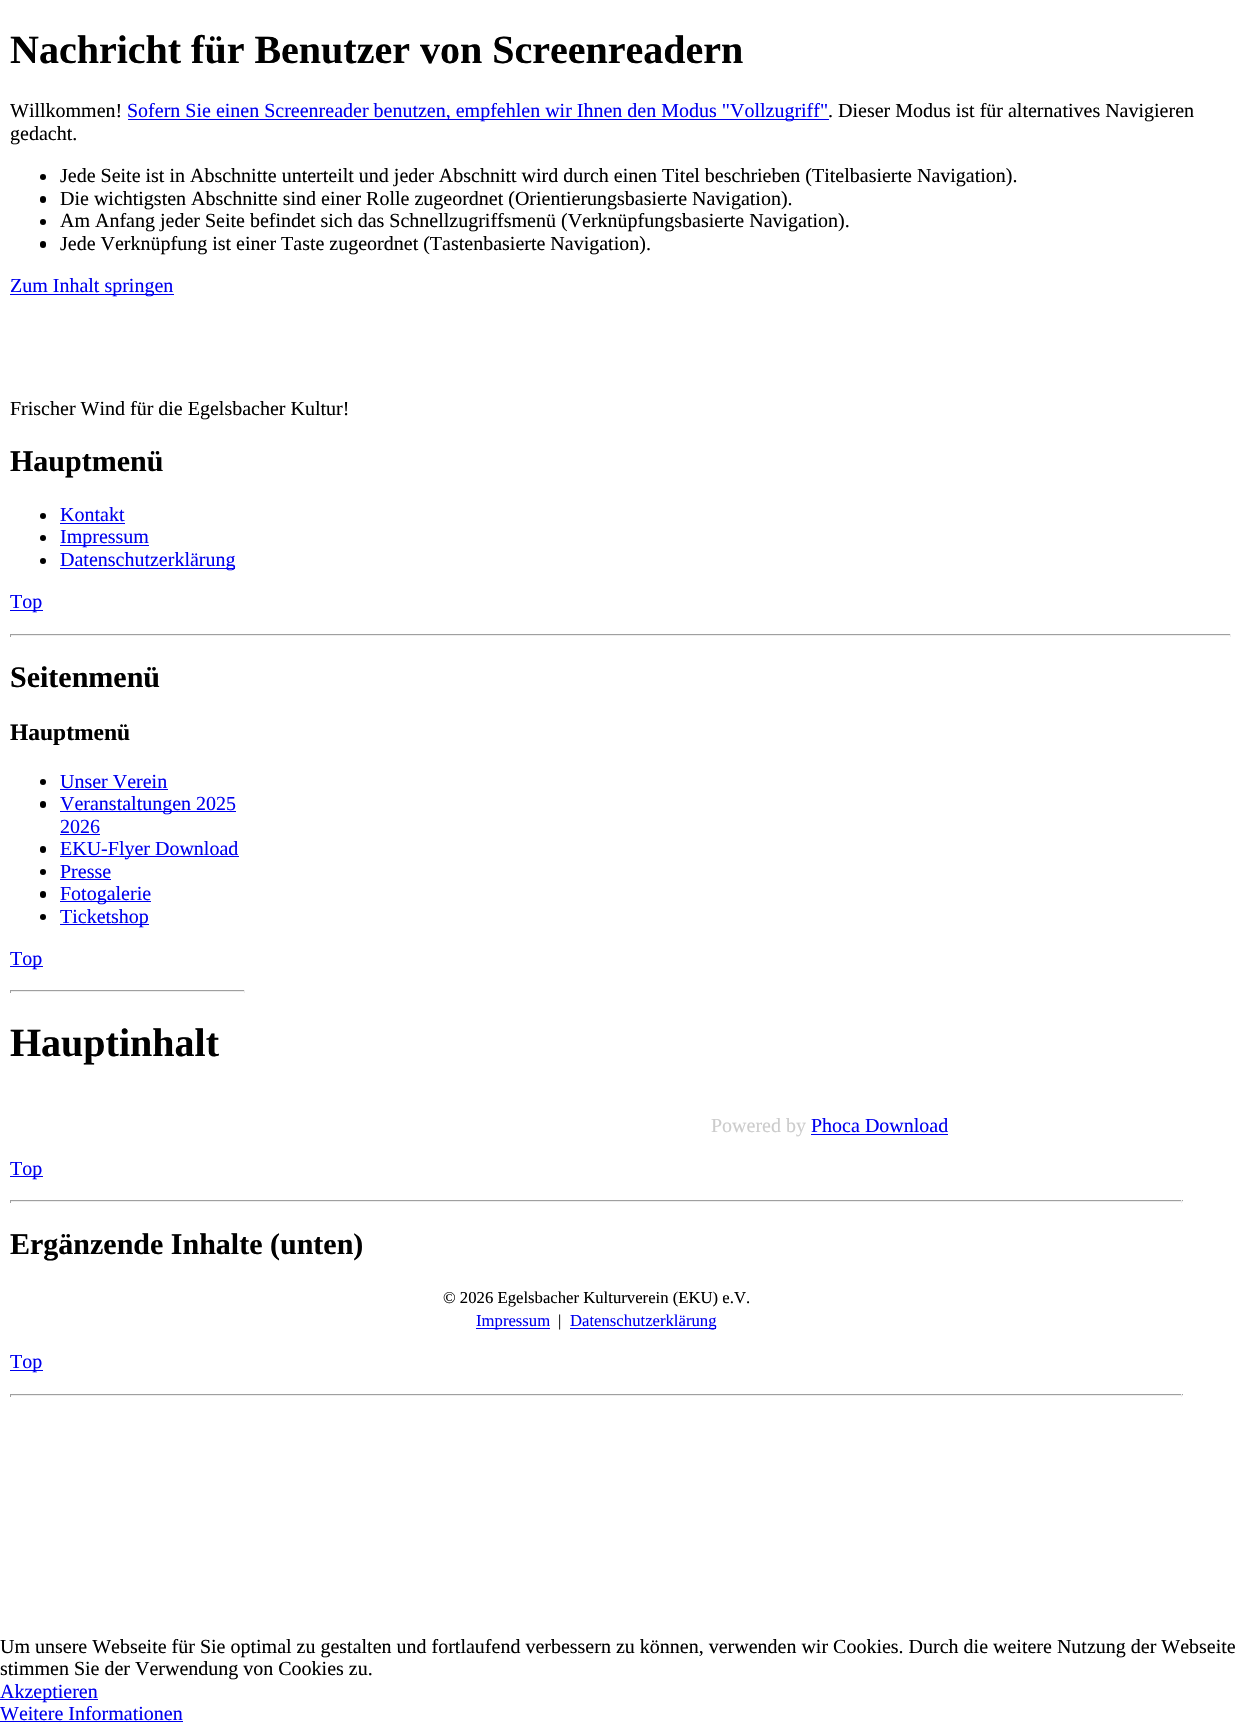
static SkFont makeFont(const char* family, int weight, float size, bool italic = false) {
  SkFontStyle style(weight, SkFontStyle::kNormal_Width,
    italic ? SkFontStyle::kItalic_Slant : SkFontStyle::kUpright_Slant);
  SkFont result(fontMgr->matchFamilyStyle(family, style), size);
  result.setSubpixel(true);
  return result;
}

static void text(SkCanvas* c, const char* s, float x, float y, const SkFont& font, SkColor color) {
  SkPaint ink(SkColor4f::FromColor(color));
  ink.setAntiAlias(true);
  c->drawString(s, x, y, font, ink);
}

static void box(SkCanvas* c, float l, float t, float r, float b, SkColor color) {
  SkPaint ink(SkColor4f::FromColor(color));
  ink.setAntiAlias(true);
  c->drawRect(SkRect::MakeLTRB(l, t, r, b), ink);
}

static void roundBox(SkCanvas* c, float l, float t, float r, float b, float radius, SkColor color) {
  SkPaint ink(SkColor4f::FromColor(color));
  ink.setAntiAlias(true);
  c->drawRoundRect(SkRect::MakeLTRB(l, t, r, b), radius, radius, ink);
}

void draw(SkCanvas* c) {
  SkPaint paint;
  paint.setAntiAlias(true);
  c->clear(0xffffffff);
  SkFont face1 = makeFont("Liberation Serif", 700, 40);
  text(c, "Nachricht für Benutzer von Screenreadern", 10, 63, face1, 0xff000000);
  SkFont face2 = makeFont("Liberation Serif", 400, 20);
  text(c, "Willkommen!", 10, 117, face2, 0xff000000);
  box(c, 128, 119, 829, 120, 0xff0000ee);
  text(c, "Sofern Sie einen Screenreader benutzen, empfehlen wir Ihnen den Modus \"Vollzugriff\"", 127, 117, face2, 0xff0000ee);
  text(c, ". Dieser Modus ist für alternatives Navigieren", 828, 117, face2, 0xff000000);
  text(c, "gedacht.", 10, 140, face2, 0xff000000);
  paint.setColor(0xff000000);
  c->drawCircle(43, 177, 3, paint);
  text(c, "Jede Seite ist in Abschnitte unterteilt und jeder Abschnitt wird durch einen Titel beschrieben (Titelbasierte Navigation).", 60, 182, face2, 0xff000000);
  roundBox(c, 40, 196, 46, 203, 3, 0xff000000);
  text(c, "Die wichtigsten Abschnitte sind einer Rolle zugeordnet (Orientierungsbasierte Navigation).", 60, 205, face2, 0xff000000);
  c->drawCircle(43, 222, 3, paint);
  text(c, "Am Anfang jeder Seite befindet sich das Schnellzugriffsmenü (Verknüpfungsbasierte Navigation).", 60, 227, face2, 0xff000000);
  roundBox(c, 40, 241, 46, 248, 3, 0xff000000);
  text(c, "Jede Verknüpfung ist einer Taste zugeordnet (Tastenbasierte Navigation).", 60, 250, face2, 0xff000000);
  box(c, 10, 294, 174, 295, 0xff0000ee);
  text(c, "Zum Inhalt springen", 10, 292, face2, 0xff0000ee);
  text(c, "Frischer Wind für die Egelsbacher Kultur!", 10, 415, face2, 0xff000000);
  SkFont face3 = makeFont("Liberation Serif", 700, 30);
  text(c, "Hauptmenü", 10, 471, face3, 0xff000000);
  c->drawCircle(43, 516, 3, paint);
  text(c, "Kontakt", 60, 521, face2, 0xff0000ee);
  box(c, 60, 523, 125, 524, 0xff0000ee);
  c->drawCircle(43, 538, 3, paint);
  box(c, 60, 545, 149, 546, 0xff0000ee);
  text(c, "Impressum", 60, 543, face2, 0xff0000ee);
  c->drawCircle(43, 561, 3, paint);
  box(c, 60, 568, 235, 569, 0xff0000ee);
  text(c, "Datenschutzerklärung", 60, 566, face2, 0xff0000ee);
  box(c, 10, 610, 43, 611, 0xff0000ee);
  text(c, "Top", 10, 608, face2, 0xff0000ee);
  box(c, 10, 634, 1231, 635, 0xff9f9f9f);
  box(c, 1230, 634, 1231, 637, 0xffeeeeee);
  box(c, 10, 635, 1231, 636, 0xffeeeeee);
  box(c, 10, 634, 11, 637, 0xff9f9f9f);
  text(c, "Seitenmenü", 10, 687, face3, 0xff000000);
  SkFont face4 = makeFont("Liberation Serif", 700, 23.5f);
  text(c, "Hauptmenü", 10, 740, face4, 0xff000000);
  c->drawCircle(43, 782, 3, paint);
  text(c, "Unser Verein", 60, 788, face2, 0xff0000ee);
  box(c, 60, 789, 168, 790, 0xff0000ee);
  roundBox(c, 40, 801, 46, 808, 3, 0xff000000);
  box(c, 60, 811, 236, 812, 0xff0000ee);
  text(c, "Veranstaltungen 2025", 60, 810, face2, 0xff0000ee);
  text(c, "2026", 60, 833, face2, 0xff0000ee);
  box(c, 60, 834, 100, 835, 0xff0000ee);
  roundBox(c, 40, 846, 46, 853, 3, 0xff000000);
  box(c, 60, 856, 239, 857, 0xff0000ee);
  text(c, "EKU-Flyer Download", 60, 855, face2, 0xff0000ee);
  c->drawCircle(43, 872, 3, paint);
  text(c, "Presse", 60, 878, face2, 0xff0000ee);
  box(c, 60, 879, 111, 880, 0xff0000ee);
  roundBox(c, 40, 891, 46, 898, 3, 0xff000000);
  box(c, 60, 901, 151, 902, 0xff0000ee);
  text(c, "Fotogalerie", 60, 900, face2, 0xff0000ee);
  c->drawCircle(43, 917, 3, paint);
  box(c, 60, 924, 149, 925, 0xff0000ee);
  text(c, "Ticketshop", 60, 923, face2, 0xff0000ee);
  box(c, 10, 966, 43, 967, 0xff0000ee);
  text(c, "Top", 10, 965, face2, 0xff0000ee);
  box(c, 10, 990, 245, 991, 0xff9f9f9f);
  box(c, 244, 990, 245, 993, 0xffeeeeee);
  box(c, 10, 991, 245, 992, 0xffeeeeee);
  box(c, 10, 990, 11, 993, 0xff9f9f9f);
  text(c, "Hauptinhalt", 10, 1056, face1, 0xff000000);
  text(c, "Powered by", 711, 1132, face2, 0xffcccccc);
  text(c, "Phoca Download", 811, 1132, face2, 0xff0000ee);
  box(c, 811, 1134, 948, 1135, 0xff0000ee);
  box(c, 10, 1176, 43, 1177, 0xff0000ee);
  text(c, "Top", 10, 1175, face2, 0xff0000ee);
  box(c, 10, 1200, 1183, 1201, 0xff9f9f9f);
  box(c, 1181, 1200, 1182, 1203, 0xffeeeeee);
  box(c, 10, 1201, 1183, 1202, 0xffeeeeee);
  box(c, 10, 1200, 11, 1203, 0xff9f9f9f);
  text(c, "Ergänzende Inhalte (unten)", 10, 1254, face3, 0xff000000);
  SkFont face5 = makeFont("Liberation Serif", 400, 16.7f);
  text(c, "© 2026 Egelsbacher Kulturverein (EKU) e.V.", 443, 1303, face5, 0xff000000);
  box(c, 476, 1328, 550, 1329, 0xff0000ee);
  text(c, "Impressum", 476, 1326, face5, 0xff0000ee);
  text(c, "|", 558, 1326, face5, 0xff000000);
  box(c, 570, 1328, 716, 1329, 0xff0000ee);
  text(c, "Datenschutzerklärung", 570, 1326, face5, 0xff0000ee);
  box(c, 10, 1370, 43, 1371, 0xff0000ee);
  text(c, "Top", 10, 1368, face2, 0xff0000ee);
  box(c, 10, 1394, 1183, 1395, 0xff9f9f9f);
  box(c, 1181, 1394, 1182, 1397, 0xffeeeeee);
  box(c, 10, 1395, 1183, 1396, 0xffeeeeee);
  box(c, 10, 1394, 11, 1397, 0xff9f9f9f);
  text(c, "Um unsere Webseite für Sie optimal zu gestalten und fortlaufend verbessern zu können, verwenden wir Cookies. Durch die weitere Nutzung der Webseite", 0, 1653, face2, 0xff000000);
  text(c, "stimmen Sie der Verwendung von Cookies zu.", 0, 1675, face2, 0xff000000);
  box(c, 0, 1699, 98, 1700, 0xff0000ee);
  text(c, "Akzeptieren", 0, 1698, face2, 0xff0000ee);
  text(c, "Weitere Informationen", 0, 1720, face2, 0xff0000ee);
  box(c, 0, 1721, 183, 1722, 0xff0000ee);
}
